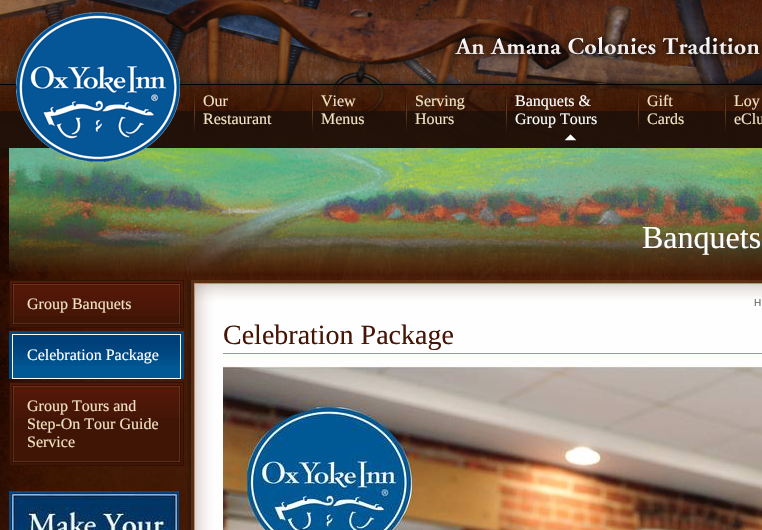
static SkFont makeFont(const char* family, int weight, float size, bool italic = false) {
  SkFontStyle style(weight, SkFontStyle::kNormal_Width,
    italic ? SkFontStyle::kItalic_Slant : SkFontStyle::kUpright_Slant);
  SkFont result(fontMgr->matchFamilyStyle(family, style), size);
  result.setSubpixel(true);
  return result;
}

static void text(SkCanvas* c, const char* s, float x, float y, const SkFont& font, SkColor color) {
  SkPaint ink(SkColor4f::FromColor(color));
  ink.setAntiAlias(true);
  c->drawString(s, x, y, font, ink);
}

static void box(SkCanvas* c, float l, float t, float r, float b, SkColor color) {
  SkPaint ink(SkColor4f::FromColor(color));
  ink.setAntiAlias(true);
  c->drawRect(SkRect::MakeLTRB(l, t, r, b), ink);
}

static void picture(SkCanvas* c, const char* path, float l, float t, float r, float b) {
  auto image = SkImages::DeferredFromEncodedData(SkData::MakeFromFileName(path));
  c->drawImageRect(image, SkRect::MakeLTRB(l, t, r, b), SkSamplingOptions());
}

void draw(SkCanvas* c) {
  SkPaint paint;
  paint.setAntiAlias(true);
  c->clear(0xffffffff);
  picture(c, "img_01.png", 0, 0, 762, 84);
  picture(c, "img_02.png", 0, 0, 762, 148);
  picture(c, "img_04.png", 193, 91, 195, 132);
  picture(c, "img_07.png", 0, 148, 762, 530);
  picture(c, "img_08.png", 9, 148, 762, 276);
  picture(c, "img_03.png", 0, 0, 200, 162);
  SkFont face1 = makeFont("Liberation Serif", 400, 16);
  text(c, "Our", 203, 106, face1, 0xfff0e2c0);
  text(c, "Restaurant", 203, 124, face1, 0xfff0e2c0);
  picture(c, "img_04.png", 311, 91, 313, 132);
  text(c, "View", 321, 106, face1, 0xfff0e2c0);
  text(c, "Menus", 321, 124, face1, 0xfff0e2c0);
  picture(c, "img_04.png", 405, 91, 407, 132);
  text(c, "Serving", 415, 106, face1, 0xfff0e2c0);
  text(c, "Hours", 415, 124, face1, 0xfff0e2c0);
  picture(c, "img_05.png", 505, 91, 507, 133);
  picture(c, "img_06.png", 564, 134, 577, 141);
  text(c, "Banquets &", 515, 106, face1, 0xffffffff);
  text(c, "Group Tours", 515, 124, face1, 0xffffffff);
  picture(c, "img_04.png", 637, 91, 639, 132);
  text(c, "Gift", 647, 106, face1, 0xfff0e2c0);
  text(c, "Cards", 647, 124, face1, 0xfff0e2c0);
  picture(c, "img_04.png", 724, 91, 726, 132);
  text(c, "Loy", 734, 106, face1, 0xfff0e2c0);
  text(c, "eClu", 734, 124, face1, 0xfff0e2c0);
  SkFont face2 = makeFont("Liberation Serif", 400, 32);
  text(c, "Banquets", 642, 248, face2, 0xffffffff);
  picture(c, "img_09.png", 9, 280, 184, 328);
  picture(c, "img_10.png", 10, 280, 183, 316);
  picture(c, "img_11.png", 10, 323, 183, 328);
  text(c, "Group Banquets", 27, 309, face1, 0xfff0e2c0);
  picture(c, "img_12.png", 9, 331, 184, 379);
  picture(c, "img_13.png", 12, 331, 181, 366);
  box(c, 13, 378, 180, 379, 0xffffffff);
  text(c, "Celebration Package", 27, 360, face1, 0xffffffff);
  picture(c, "img_14.png", 9, 382, 184, 466);
  picture(c, "img_10.png", 10, 382, 183, 418);
  picture(c, "img_11.png", 10, 461, 183, 466);
  text(c, "Group Tours and", 27, 411, face1, 0xfff0e2c0);
  text(c, "Step-On Tour Guide", 27, 429, face1, 0xfff0e2c0);
  text(c, "Service", 27, 447, face1, 0xfff0e2c0);
  picture(c, "img_15.png", 9, 491, 179, 530);
  picture(c, "img_16.png", 187, 280, 762, 284);
  picture(c, "img_17.png", 187, 284, 762, 530);
  picture(c, "img_18.png", 195, 284, 762, 301);
  SkFont face3 = makeFont("Liberation Sans", 400, 10);
  text(c, "H", 754, 306, face3, 0xff666666);
  box(c, 223, 353, 762, 354, 0xffc18d6e);
  SkFont face4 = makeFont("Liberation Serif", 400, 28);
  text(c, "Celebration Package", 223, 344, face4, 0xff451506);
  picture(c, "img_19.png", 223, 366, 762, 530);
}
